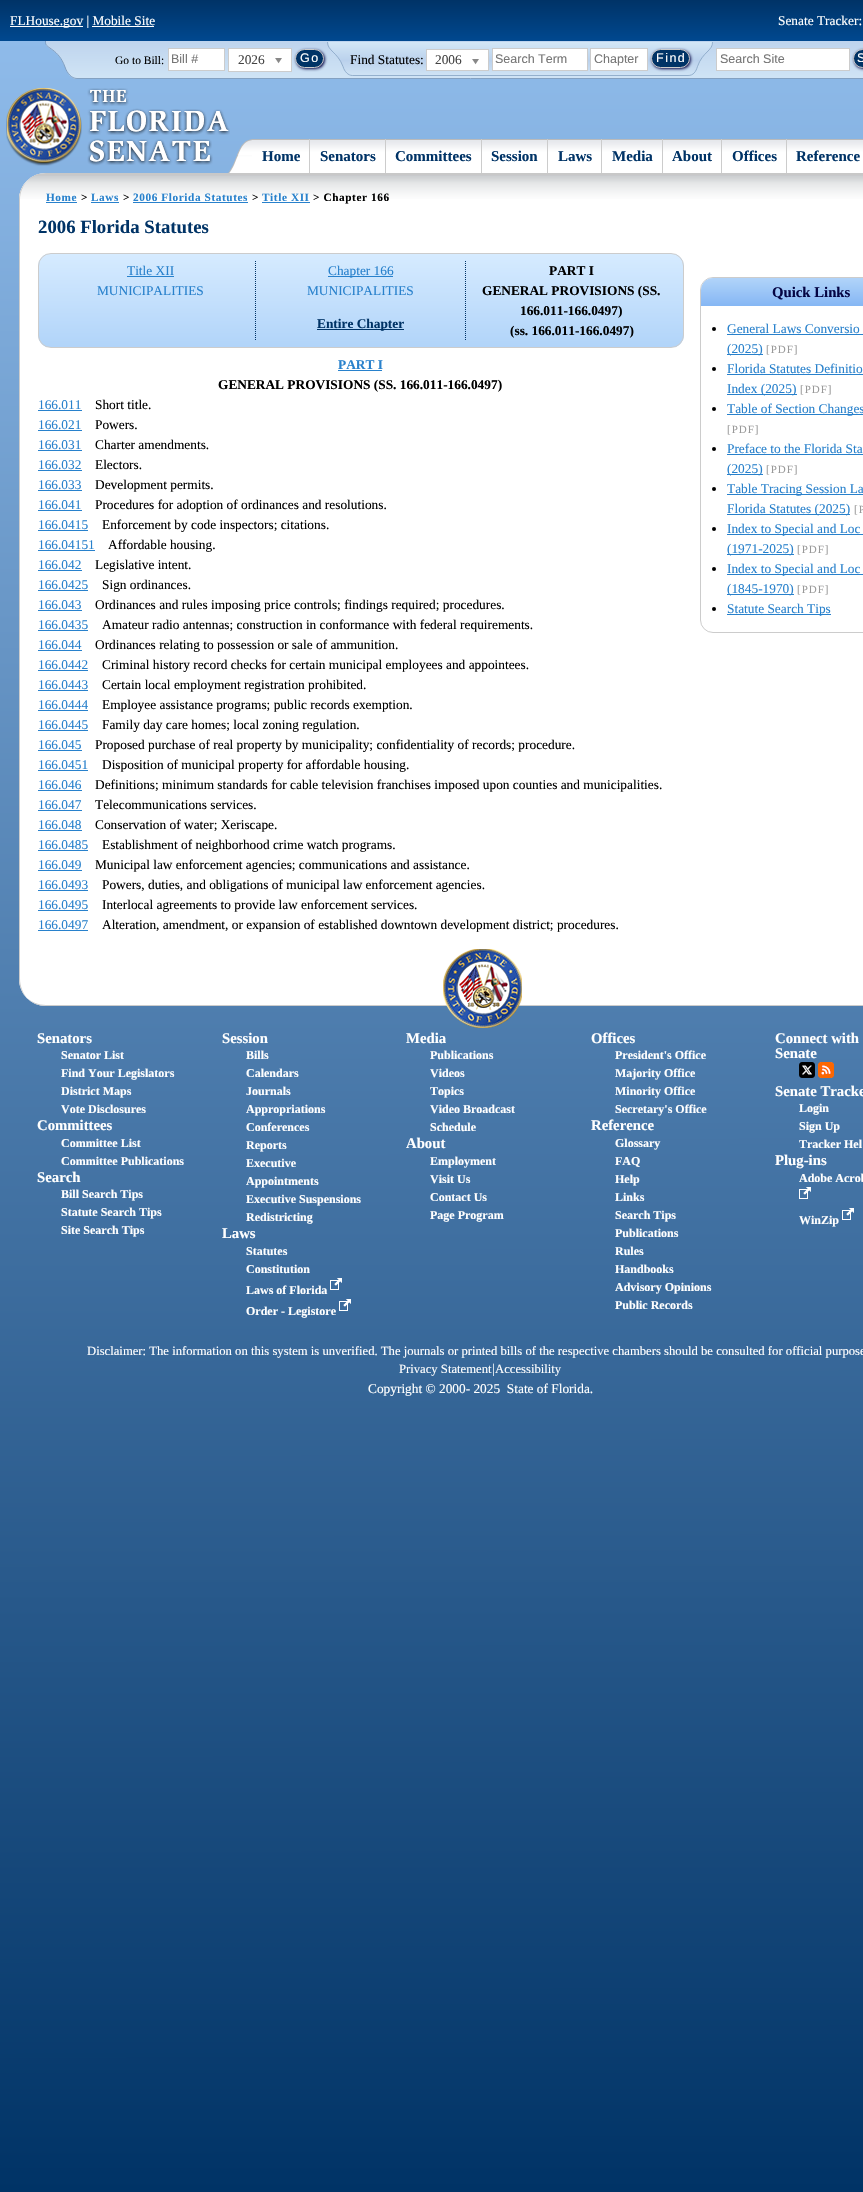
static SkFont makeFont(const char* family, int weight, float size, bool italic = false) {
  SkFontStyle style(weight, SkFontStyle::kNormal_Width,
    italic ? SkFontStyle::kItalic_Slant : SkFontStyle::kUpright_Slant);
  SkFont result(fontMgr->matchFamilyStyle(family, style), size);
  result.setSubpixel(true);
  return result;
}

static void text(SkCanvas* c, const char* s, float x, float y, const SkFont& font, SkColor color) {
  SkPaint ink(SkColor4f::FromColor(color));
  ink.setAntiAlias(true);
  c->drawString(s, x, y, font, ink);
}

static void spacedText(SkCanvas* c, const char* s, float x, float y, const SkFont& font, const SkPaint& ink, float letter, float word) {
  std::vector<SkGlyphID> glyphs(font.countText(s, strlen(s), SkTextEncoding::kUTF8));
  std::vector<float> xs(glyphs.size());
  font.textToGlyphs(s, strlen(s), SkTextEncoding::kUTF8, glyphs);
  font.getXPos(glyphs, xs, x);
  float extra = 0;
  for (size_t i = 0; i < glyphs.size(); i++) {
    xs[i] += extra;
    extra += letter + word * (glyphs[i] == font.unicharToGlyph(' '));
  }
  c->drawTextBlob(SkTextBlob::MakeFromPosHGlyphs(glyphs, xs, y, font), 0, 0, ink);
}

static void box(SkCanvas* c, float l, float t, float r, float b, SkColor color) {
  SkPaint ink(SkColor4f::FromColor(color));
  ink.setAntiAlias(true);
  c->drawRect(SkRect::MakeLTRB(l, t, r, b), ink);
}

static void picture(SkCanvas* c, const char* path, float l, float t, float r, float b) {
  auto image = SkImages::DeferredFromEncodedData(SkData::MakeFromFileName(path));
  c->drawImageRect(image, SkRect::MakeLTRB(l, t, r, b), SkSamplingOptions());
}

void draw(SkCanvas* c) {
  SkPaint paint;
  paint.setAntiAlias(true);
  c->clear(0xffffffff);
  {
    const SkColor colors[] = {0xff90bceb, 0xff003366};
    const float stops[] = {0.01f, 1};
    const SkPoint ends[] = {{431, 0}, {432, 2192}};
    paint.setShader(SkGradientShader::MakeLinear(ends, colors, stops, 2, SkTileMode::kClamp));
    paint.setAlpha(255);
  }
  c->drawRect(SkRect::MakeLTRB(0, 41, 863, 2192), paint);
  {
    const SkColor colors[] = {0xff003366, 0xff00488f};
    const float stops[] = {0, 1};
    const SkPoint ends[] = {{480, 0}, {480, 41}};
    paint.setShader(SkGradientShader::MakeLinear(ends, colors, stops, 2, SkTileMode::kClamp));
    paint.setAlpha(255);
  }
  c->drawRect(SkRect::MakeLTRB(0, 0, 863, 41), paint);
  box(c, 10, 26, 83, 27, 0xffffffff);
  SkFont face1 = makeFont("Liberation Serif", 400, 13.35f);
  text(c, "FLHouse.gov | Mobile Site", 10, 25, face1, 0xffffffff);
  box(c, 92, 26, 154, 27, 0xffffffff);
  text(c, "Senate Tracker:", 778, 25, face1, 0xffffffff);
  c->save();
  c->clipRect(SkRect::MakeLTRB(43, 41, 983, 86));
  {
    const SkColor colors[] = {0xffd3e7f6, 0xffbad1ec, 0xffbdd3ed, 0xffd0e4f5};
    const float stops[] = {0, 0.55f, 0.59f, 1};
    const SkPoint ends[] = {{514, -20}, {514, 79}};
    paint.setShader(SkGradientShader::MakeLinear(ends, colors, stops, 4, SkTileMode::kClamp));
    paint.setAlpha(255);
  }
  c->drawPath(SkPathBuilder().moveTo(46, -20).lineTo(46, 43).cubicTo(45, 49, 58, 48, 65, 67).cubicTo(67, 73, 71, 79, 77, 79).lineTo(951, 79).cubicTo(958, 79, 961, 73, 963, 67).cubicTo(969, 48, 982, 48, 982, 43).lineTo(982, -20).detach(), paint);
  paint.setStyle(SkPaint::kStroke_Style);
  paint.setStrokeWidth(0.9f);
  paint.setShader(nullptr);
  paint.setColor(0xff7a99bb);
  c->drawPath(SkPathBuilder().moveTo(45.5f, -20).lineTo(45.5f, 42.5f).cubicTo(45.5f, 48.5f, 58.5f, 48.5f, 65, 67).cubicTo(67, 73, 71.5f, 78.5f, 77, 78.5f).lineTo(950.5f, 78.5f).cubicTo(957.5f, 78.5f, 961, 73, 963, 67).cubicTo(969.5f, 48.5f, 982, 48.5f, 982, 42.5f).lineTo(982, -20).detach(), paint);
  c->restore();
  SkFont face2 = makeFont("Liberation Serif", 400, 11.5f);
  text(c, "Go to Bill:", 115, 64, face2, 0xff000000);
  paint.setStyle(SkPaint::kFill_Style);
  paint.setColor(0xffffffff);
  c->drawRect(SkRect::MakeLTRB(168.5f, 48.5f, 224.5f, 70.5f), paint);
  paint.setStyle(SkPaint::kStroke_Style);
  paint.setStrokeWidth(1);
  paint.setColor(0xffcccccc);
  c->drawRect(SkRect::MakeLTRB(168.5f, 48.5f, 224.5f, 70.5f), paint);
  SkFont face3 = makeFont("Liberation Sans", 400, 12.5f);
  text(c, "Bill #", 171, 63, face3, 0xff757575);
  paint.setStyle(SkPaint::kFill_Style);
  {
    const SkColor colors[] = {0xffd3e7f6, 0xffbad1ec, 0xffbdd3ed, 0xffd0e4f5};
    const float stops[] = {0, 0.55f, 0.59f, 1};
    const SkPoint ends[] = {{520, 42}, {520, 76}};
    paint.setShader(SkGradientShader::MakeLinear(ends, colors, stops, 4, SkTileMode::kClamp));
    paint.setAlpha(255);
  }
  c->drawPath(SkPathBuilder().moveTo(713, 42).cubicTo(713, 50, 703, 52, 697, 67).cubicTo(696, 71, 693, 76, 688, 76).lineTo(352, 76).cubicTo(348, 76, 344, 71, 343, 67).cubicTo(338, 52, 328, 51, 328, 42).detach(), paint);
  paint.setStyle(SkPaint::kStroke_Style);
  paint.setStrokeWidth(0.7f);
  paint.setShader(nullptr);
  paint.setColor(0xff7a99bb);
  c->drawPath(SkPathBuilder().moveTo(712.5f, 42).cubicTo(713, 50.5f, 702.5f, 52, 697.5f, 66.5f).cubicTo(696, 71.5f, 693.5f, 75.5f, 688, 75.5f).lineTo(352.5f, 75.5f).cubicTo(348, 75.5f, 344.5f, 71.5f, 343, 66.5f).cubicTo(337.5f, 52, 327.5f, 51, 327.5f, 42).detach(), paint);
  paint.setStyle(SkPaint::kFill_Style);
  paint.setColor(0xff040443);
  paint.setMaskFilter(SkMaskFilter::MakeBlur(kNormal_SkBlurStyle, 1.5f));
  c->drawRoundRect(SkRect::MakeLTRB(296, 50, 325, 69), 9.5f, 9.5f, paint);
  paint.setMaskFilter(nullptr);
  paint.setColor(0xffffffff);
  c->drawRect(SkRect::MakeLTRB(228.5f, 48.5f, 291.5f, 71.5f), paint);
  paint.setStyle(SkPaint::kStroke_Style);
  paint.setStrokeWidth(1);
  paint.setColor(0xffcccccc);
  c->drawRect(SkRect::MakeLTRB(228.5f, 48.5f, 291.5f, 71.5f), paint);
  text(c, "2026", 238, 64, face1, 0xff444444);
  picture(c, "img_01.png", 275, 58, 282, 64);
  paint.setStyle(SkPaint::kFill_Style);
  paint.setColor(0xff003366);
  c->drawRoundRect(SkRect::MakeLTRB(295.5f, 49.5f, 323.5f, 67.5f), 9, 9, paint);
  paint.setStyle(SkPaint::kStroke_Style);
  paint.setColor(0xffcccccc);
  c->drawRoundRect(SkRect::MakeLTRB(295.5f, 49.5f, 323.5f, 67.5f), 9, 9, paint);
  paint.setStyle(SkPaint::kFill_Style);
  paint.setColor(0xffffffff);
  spacedText(c, "Go", 300, 62, face3, paint, 1.5f, 0);
  text(c, "Find Statutes:", 350, 64, face1, 0xff000000);
  c->drawRect(SkRect::MakeLTRB(426.5f, 49.5f, 488.5f, 70.5f), paint);
  paint.setStyle(SkPaint::kStroke_Style);
  paint.setColor(0xffcccccc);
  c->drawRect(SkRect::MakeLTRB(426.5f, 49.5f, 488.5f, 70.5f), paint);
  text(c, "2006", 435, 64, face1, 0xff444444);
  picture(c, "img_01.png", 472, 59, 479, 65);
  paint.setStyle(SkPaint::kFill_Style);
  paint.setColor(0xffffffff);
  c->drawRect(SkRect::MakeLTRB(492.5f, 48.5f, 587.5f, 70.5f), paint);
  paint.setStyle(SkPaint::kStroke_Style);
  paint.setColor(0xffcccccc);
  c->drawRect(SkRect::MakeLTRB(492.5f, 48.5f, 587.5f, 70.5f), paint);
  text(c, "Search Term", 495, 63, face3, 0xff757575);
  paint.setStyle(SkPaint::kFill_Style);
  paint.setColor(0xffffffff);
  c->drawRect(SkRect::MakeLTRB(590.5f, 48.5f, 647.5f, 70.5f), paint);
  paint.setStyle(SkPaint::kStroke_Style);
  paint.setColor(0xffcccccc);
  c->drawRect(SkRect::MakeLTRB(590.5f, 48.5f, 647.5f, 70.5f), paint);
  text(c, "Chapter", 594, 63, face3, 0xff757575);
  paint.setStyle(SkPaint::kFill_Style);
  paint.setColor(0xff040443);
  paint.setMaskFilter(SkMaskFilter::MakeBlur(kNormal_SkBlurStyle, 1.5f));
  c->drawRoundRect(SkRect::MakeLTRB(652, 50, 691, 69), 9.5f, 9.5f, paint);
  paint.setMaskFilter(nullptr);
  paint.setColor(0xff003366);
  c->drawRoundRect(SkRect::MakeLTRB(651.5f, 49.5f, 689.5f, 67.5f), 9, 9, paint);
  paint.setStyle(SkPaint::kStroke_Style);
  paint.setColor(0xffcccccc);
  c->drawRoundRect(SkRect::MakeLTRB(651.5f, 49.5f, 689.5f, 67.5f), 9, 9, paint);
  paint.setStyle(SkPaint::kFill_Style);
  paint.setColor(0xffffffff);
  spacedText(c, "Find", 656, 62, face3, paint, 1.5f, 0);
  c->drawRect(SkRect::MakeLTRB(716.5f, 48.5f, 849.5f, 70.5f), paint);
  paint.setStyle(SkPaint::kStroke_Style);
  paint.setColor(0xffcccccc);
  c->drawRect(SkRect::MakeLTRB(716.5f, 48.5f, 849.5f, 70.5f), paint);
  text(c, "Search Site", 720, 63, face3, 0xff757575);
  paint.setStyle(SkPaint::kFill_Style);
  paint.setColor(0xff040443);
  paint.setMaskFilter(SkMaskFilter::MakeBlur(kNormal_SkBlurStyle, 1.5f));
  c->drawRoundRect(SkRect::MakeLTRB(854, 50, 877, 69), 9.5f, 9.5f, paint);
  paint.setMaskFilter(nullptr);
  paint.setColor(0xff003366);
  c->drawRoundRect(SkRect::MakeLTRB(853.5f, 49.5f, 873.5f, 67.5f), 9, 9, paint);
  paint.setStyle(SkPaint::kStroke_Style);
  paint.setColor(0xffcccccc);
  c->drawRoundRect(SkRect::MakeLTRB(853.5f, 49.5f, 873.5f, 67.5f), 9, 9, paint);
  paint.setStyle(SkPaint::kFill_Style);
  paint.setColor(0xffffffff);
  spacedText(c, "S", 857, 62, face3, paint, 1.5f, 0);
  picture(c, "img_02.png", 6, 88, 230, 166);
  picture(c, "img_03.png", 228, 139, 252, 173);
  picture(c, "img_04.png", 252, 139, 309, 173);
  box(c, 309, 139, 310, 173, 0xffcccccc);
  SkFont face4 = makeFont("Liberation Serif", 700, 15);
  text(c, "Home", 262, 161, face4, 0xff003366);
  picture(c, "img_05.png", 310, 139, 385, 173);
  box(c, 385, 139, 386, 173, 0xffcccccc);
  text(c, "Senators", 320, 161, face4, 0xff003366);
  picture(c, "img_06.png", 386, 139, 481, 173);
  box(c, 481, 139, 482, 173, 0xffcccccc);
  text(c, "Committees", 395, 161, face4, 0xff003366);
  picture(c, "img_07.png", 482, 139, 547, 173);
  box(c, 547, 139, 548, 173, 0xffcccccc);
  text(c, "Session", 491, 161, face4, 0xff003366);
  picture(c, "img_08.png", 548, 139, 601, 173);
  box(c, 601, 139, 602, 173, 0xffcccccc);
  text(c, "Laws", 558, 161, face4, 0xff003366);
  picture(c, "img_09.png", 602, 139, 662, 173);
  box(c, 662, 139, 663, 173, 0xffcccccc);
  text(c, "Media", 612, 161, face4, 0xff003366);
  picture(c, "img_10.png", 663, 139, 721, 173);
  box(c, 721, 139, 722, 173, 0xffcccccc);
  text(c, "About", 672, 161, face4, 0xff003366);
  picture(c, "img_11.png", 722, 139, 786, 173);
  box(c, 786, 139, 787, 173, 0xffcccccc);
  text(c, "Offices", 732, 161, face4, 0xff003366);
  picture(c, "img_12.png", 787, 139, 863, 173);
  text(c, "Reference", 796, 161, face4, 0xff003366);
  c->drawPath(SkPathBuilder().moveTo(46, 173).lineTo(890, 173).lineTo(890, 979).cubicTo(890, 994, 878, 1006, 863, 1006).lineTo(46, 1006).cubicTo(31, 1006, 19, 994, 19, 979).lineTo(19, 200).cubicTo(19, 185, 31, 173, 46, 173).close().detach(), paint);
  picture(c, "img_13.png", 19, 174, 863, 199);
  paint.setColor(0xffc8c8c8);
  c->drawPath(SkPathBuilder().moveTo(46, 173).cubicTo(38, 173, 32, 176, 27, 181).cubicTo(32, 177, 38, 174, 46, 174).lineTo(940, 174).lineTo(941, 173).close().detach(), paint);
  paint.setColor(0xffcccccc);
  c->drawPath(SkPathBuilder().moveTo(46, 1006).lineTo(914, 1006).cubicTo(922, 1006, 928, 1003, 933, 998).cubicTo(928, 1002, 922, 1005, 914, 1005).lineTo(46, 1005).cubicTo(38, 1005, 32, 1002, 27, 998).cubicTo(32, 1003, 38, 1006, 46, 1006).close().detach(), paint);
  c->drawPath(SkPathBuilder().moveTo(19, 200).lineTo(19, 979).cubicTo(19, 986, 22, 993, 27, 998).cubicTo(23, 993, 20, 986, 20, 979).lineTo(20, 200).cubicTo(20, 192, 23, 186, 27, 181).cubicTo(22, 186, 19, 192, 19, 200).close().detach(), paint);
  SkFont face5 = makeFont("Liberation Serif", 700, 11.25f);
  paint.setColor(0xff2881cc);
  spacedText(c, "Home", 46, 201, face5, paint, 0.6f, 0);
  box(c, 46, 202, 77, 203, 0xff2881cc);
  paint.setColor(0xff000000);
  spacedText(c, ">", 81, 201, face5, paint, 0.6f, 0);
  paint.setColor(0xff2881cc);
  spacedText(c, "Laws", 91, 201, face5, paint, 0.6f, 0);
  box(c, 91, 202, 119, 203, 0xff2881cc);
  paint.setColor(0xff000000);
  spacedText(c, ">", 123, 201, face5, paint, 0.6f, 0);
  paint.setColor(0xff2881cc);
  spacedText(c, "2006 Florida Statutes", 133, 201, face5, paint, 0.6f, 0);
  box(c, 133, 202, 248, 203, 0xff2881cc);
  paint.setColor(0xff000000);
  spacedText(c, ">", 252, 201, face5, paint, 0.6f, 0);
  paint.setColor(0xff2881cc);
  spacedText(c, "Title XII", 262, 201, face5, paint, 0.6f, 0);
  box(c, 262, 202, 310, 203, 0xff2881cc);
  paint.setColor(0xff000000);
  spacedText(c, "> Chapter 166", 313, 201, face5, paint, 0.6f, 0);
  SkFont face6 = makeFont("Liberation Serif", 700, 18.75f);
  text(c, "2006 Florida Statutes", 38, 233, face6, 0xff003366);
  c->save();
  c->clipPath(SkPathBuilder().moveTo(51, 253).lineTo(671, 253).cubicTo(678, 253, 684, 259, 684, 266).lineTo(684, 335).cubicTo(684, 342, 678, 348, 671, 348).lineTo(51, 348).cubicTo(44, 348, 38, 342, 38, 335).lineTo(38, 266).cubicTo(38, 259, 44, 253, 51, 253).close().detach(), true);
  {
    const SkColor colors[] = {0xffd6ebff, 0xffb1d4f9};
    const float stops[] = {0, 1};
    const SkPoint ends[] = {{361, 254}, {361, 347}};
    paint.setShader(SkGradientShader::MakeLinear(ends, colors, stops, 2, SkTileMode::kClamp));
    paint.setAlpha(255);
  }
  c->drawRect(SkRect::MakeLTRB(38, 254, 684, 347), paint);
  c->restore();
  paint.setStyle(SkPaint::kStroke_Style);
  paint.setShader(nullptr);
  paint.setColor(0xffcccccc);
  c->drawRoundRect(SkRect::MakeLTRB(38.5f, 253.5f, 683.5f, 347.5f), 12.5f, 12.5f, paint);
  paint.setColor(0xff003366);
  paint.setPathEffect(SkDashPathEffect::Make({{1, 1}}, 0));
  c->drawPath(SkPathBuilder().moveTo(255.5f, 261).lineTo(255.5f, 341).detach(), paint);
  paint.setPathEffect(nullptr);
  text(c, "Title XII", 127, 275, face1, 0xff2881cc);
  box(c, 127, 276, 174, 277, 0xff2881cc);
  text(c, "MUNICIPALITIES", 97, 295, face1, 0xff2881cc);
  paint.setPathEffect(SkDashPathEffect::Make({{1, 1}}, 0));
  c->drawPath(SkPathBuilder().moveTo(465.5f, 261).lineTo(465.5f, 341).detach(), paint);
  paint.setPathEffect(nullptr);
  box(c, 328, 276, 393, 277, 0xff2881cc);
  text(c, "Chapter 166", 328, 275, face1, 0xff2881cc);
  text(c, "MUNICIPALITIES", 307, 295, face1, 0xff2881cc);
  box(c, 317, 329, 404, 330, 0xff003366);
  SkFont face7 = makeFont("Liberation Serif", 700, 13.35f);
  text(c, "Entire Chapter", 317, 328, face7, 0xff003366);
  text(c, "PART I", 549, 275, face7, 0xff000000);
  text(c, "GENERAL PROVISIONS (SS.", 482, 295, face7, 0xff000000);
  text(c, "166.011-166.0497)", 520, 315, face7, 0xff000000);
  text(c, "(ss. 166.011-166.0497)", 510, 335, face7, 0xff000000);
  text(c, "PART I", 338, 369, face7, 0xff2881cc);
  box(c, 338, 370, 382, 371, 0xff2881cc);
  text(c, "GENERAL PROVISIONS (SS. 166.011-166.0497)", 218, 389, face7, 0xff000000);
  text(c, "166.011", 38, 409, face1, 0xff2881cc);
  box(c, 38, 410, 82, 411, 0xff2881cc);
  text(c, "Short title.", 95, 409, face1, 0xff000000);
  text(c, "166.021", 38, 429, face1, 0xff2881cc);
  box(c, 38, 430, 82, 431, 0xff2881cc);
  text(c, "Powers.", 95, 429, face1, 0xff000000);
  text(c, "166.031", 38, 449, face1, 0xff2881cc);
  box(c, 38, 450, 82, 451, 0xff2881cc);
  text(c, "Charter amendments.", 95, 449, face1, 0xff000000);
  text(c, "166.032", 38, 469, face1, 0xff2881cc);
  box(c, 38, 470, 82, 471, 0xff2881cc);
  text(c, "Electors.", 95, 469, face1, 0xff000000);
  text(c, "166.033", 38, 489, face1, 0xff2881cc);
  box(c, 38, 490, 82, 491, 0xff2881cc);
  text(c, "Development permits.", 95, 489, face1, 0xff000000);
  text(c, "166.041", 38, 509, face1, 0xff2881cc);
  box(c, 38, 510, 82, 511, 0xff2881cc);
  text(c, "Procedures for adoption of ordinances and resolutions.", 95, 509, face1, 0xff000000);
  text(c, "166.0415", 38, 529, face1, 0xff2881cc);
  box(c, 38, 530, 88, 531, 0xff2881cc);
  text(c, "Enforcement by code inspectors; citations.", 102, 529, face1, 0xff000000);
  text(c, "166.04151", 38, 549, face1, 0xff2881cc);
  box(c, 38, 550, 95, 551, 0xff2881cc);
  text(c, "Affordable housing.", 108, 549, face1, 0xff000000);
  text(c, "166.042", 38, 569, face1, 0xff2881cc);
  box(c, 38, 570, 82, 571, 0xff2881cc);
  text(c, "Legislative intent.", 95, 569, face1, 0xff000000);
  text(c, "166.0425", 38, 589, face1, 0xff2881cc);
  box(c, 38, 590, 88, 591, 0xff2881cc);
  text(c, "Sign ordinances.", 102, 589, face1, 0xff000000);
  text(c, "166.043", 38, 609, face1, 0xff2881cc);
  box(c, 38, 610, 82, 611, 0xff2881cc);
  text(c, "Ordinances and rules imposing price controls; findings required; procedures.", 95, 609, face1, 0xff000000);
  text(c, "166.0435", 38, 629, face1, 0xff2881cc);
  box(c, 38, 630, 88, 631, 0xff2881cc);
  text(c, "Amateur radio antennas; construction in conformance with federal requirements.", 102, 629, face1, 0xff000000);
  text(c, "166.044", 38, 649, face1, 0xff2881cc);
  box(c, 38, 650, 82, 651, 0xff2881cc);
  text(c, "Ordinances relating to possession or sale of ammunition.", 95, 649, face1, 0xff000000);
  text(c, "166.0442", 38, 669, face1, 0xff2881cc);
  box(c, 38, 670, 88, 671, 0xff2881cc);
  text(c, "Criminal history record checks for certain municipal employees and appointees.", 102, 669, face1, 0xff000000);
  text(c, "166.0443", 38, 689, face1, 0xff2881cc);
  box(c, 38, 690, 88, 691, 0xff2881cc);
  text(c, "Certain local employment registration prohibited.", 102, 689, face1, 0xff000000);
  text(c, "166.0444", 38, 709, face1, 0xff2881cc);
  box(c, 38, 710, 88, 711, 0xff2881cc);
  text(c, "Employee assistance programs; public records exemption.", 102, 709, face1, 0xff000000);
  text(c, "166.0445", 38, 729, face1, 0xff2881cc);
  box(c, 38, 730, 88, 731, 0xff2881cc);
  text(c, "Family day care homes; local zoning regulation.", 102, 729, face1, 0xff000000);
  text(c, "166.045", 38, 749, face1, 0xff2881cc);
  box(c, 38, 750, 82, 751, 0xff2881cc);
  text(c, "Proposed purchase of real property by municipality; confidentiality of records; procedure.", 95, 749, face1, 0xff000000);
  text(c, "166.0451", 38, 769, face1, 0xff2881cc);
  box(c, 38, 770, 88, 771, 0xff2881cc);
  text(c, "Disposition of municipal property for affordable housing.", 102, 769, face1, 0xff000000);
  text(c, "166.046", 38, 789, face1, 0xff2881cc);
  box(c, 38, 790, 82, 791, 0xff2881cc);
  text(c, "Definitions; minimum standards for cable television franchises imposed upon counties and municipalities.", 95, 789, face1, 0xff000000);
  text(c, "166.047", 38, 809, face1, 0xff2881cc);
  box(c, 38, 810, 82, 811, 0xff2881cc);
  text(c, "Telecommunications services.", 95, 809, face1, 0xff000000);
  text(c, "166.048", 38, 829, face1, 0xff2881cc);
  box(c, 38, 830, 82, 831, 0xff2881cc);
  text(c, "Conservation of water; Xeriscape.", 95, 829, face1, 0xff000000);
  text(c, "166.0485", 38, 849, face1, 0xff2881cc);
  box(c, 38, 850, 88, 851, 0xff2881cc);
  text(c, "Establishment of neighborhood crime watch programs.", 102, 849, face1, 0xff000000);
  text(c, "166.049", 38, 869, face1, 0xff2881cc);
  box(c, 38, 870, 82, 871, 0xff2881cc);
  text(c, "Municipal law enforcement agencies; communications and assistance.", 95, 869, face1, 0xff000000);
  text(c, "166.0493", 38, 889, face1, 0xff2881cc);
  box(c, 38, 890, 88, 891, 0xff2881cc);
  text(c, "Powers, duties, and obligations of municipal law enforcement agencies.", 102, 889, face1, 0xff000000);
  text(c, "166.0495", 38, 909, face1, 0xff2881cc);
  box(c, 38, 910, 88, 911, 0xff2881cc);
  text(c, "Interlocal agreements to provide law enforcement services.", 102, 909, face1, 0xff000000);
  text(c, "166.0497", 38, 929, face1, 0xff2881cc);
  box(c, 38, 930, 88, 931, 0xff2881cc);
  text(c, "Alteration, amendment, or expansion of established downtown development district; procedures.", 102, 929, face1, 0xff000000);
  paint.setColor(0xffcccccc);
  c->drawRoundRect(SkRect::MakeLTRB(700.5f, 277.5f, 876.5f, 632.5f), 12.5f, 12.5f, paint);
  paint.setStyle(SkPaint::kFill_Style);
  {
    const SkColor colors[] = {0xffb1d4f9, 0xff85b6f4};
    const float stops[] = {0, 1};
    const SkPoint ends[] = {{701, 278}, {701, 306}};
    paint.setShader(SkGradientShader::MakeLinear(ends, colors, stops, 2, SkTileMode::kClamp));
    paint.setAlpha(255);
  }
  c->drawPath(SkPathBuilder().moveTo(713, 278).lineTo(863, 278).cubicTo(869.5f, 278, 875, 283.5f, 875, 290).lineTo(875, 306).lineTo(701, 306).lineTo(701, 290).cubicTo(701, 283.5f, 706.5f, 278, 713, 278).close().detach(), paint);
  SkFont face8 = makeFont("Liberation Serif", 700, 14.75f);
  text(c, "Quick Links", 772, 297, face8, 0xff040443);
  paint.setShader(nullptr);
  paint.setColor(0xff000000);
  c->drawCircle(714, 329, 2, paint);
  text(c, "General Laws Conversio", 727, 333, face1, 0xff2881cc);
  box(c, 727, 334, 863, 335, 0xff2881cc);
  box(c, 727, 354, 763, 355, 0xff2881cc);
  text(c, "(2025)", 727, 353, face1, 0xff2881cc);
  SkFont face9 = makeFont("Liberation Serif", 400, 11);
  paint.setColor(0xff999999);
  spacedText(c, "[PDF]", 766, 353, face9, paint, 1, 0);
  paint.setColor(0xff000000);
  c->drawCircle(714, 369, 2, paint);
  text(c, "Florida Statutes Definitio", 727, 373, face1, 0xff2881cc);
  box(c, 727, 374, 863, 375, 0xff2881cc);
  box(c, 727, 394, 797, 395, 0xff2881cc);
  text(c, "Index (2025)", 727, 393, face1, 0xff2881cc);
  paint.setColor(0xff999999);
  spacedText(c, "[PDF]", 800, 393, face9, paint, 1, 0);
  paint.setColor(0xff000000);
  c->drawCircle(714, 409, 2, paint);
  box(c, 727, 414, 863, 415, 0xff2881cc);
  text(c, "Table of Section Changes", 727, 413, face1, 0xff2881cc);
  paint.setColor(0xff999999);
  spacedText(c, "[PDF]", 727, 433, face9, paint, 1, 0);
  paint.setColor(0xff000000);
  c->drawCircle(714, 449, 2, paint);
  text(c, "Preface to the Florida Sta", 727, 453, face1, 0xff2881cc);
  box(c, 727, 454, 863, 455, 0xff2881cc);
  box(c, 727, 474, 763, 475, 0xff2881cc);
  text(c, "(2025)", 727, 473, face1, 0xff2881cc);
  paint.setColor(0xff999999);
  spacedText(c, "[PDF]", 766, 473, face9, paint, 1, 0);
  paint.setColor(0xff000000);
  c->drawCircle(714, 489, 2, paint);
  box(c, 727, 494, 863, 495, 0xff2881cc);
  text(c, "Table Tracing Session La", 727, 493, face1, 0xff2881cc);
  box(c, 727, 514, 850, 515, 0xff2881cc);
  text(c, "Florida Statutes (2025)", 727, 513, face1, 0xff2881cc);
  paint.setColor(0xff999999);
  spacedText(c, "[P", 854, 513, face9, paint, 1, 0);
  paint.setColor(0xff000000);
  c->drawCircle(714, 529, 2, paint);
  box(c, 727, 534, 863, 535, 0xff2881cc);
  text(c, "Index to Special and Loc", 727, 533, face1, 0xff2881cc);
  box(c, 727, 554, 794, 555, 0xff2881cc);
  text(c, "(1971-2025)", 727, 553, face1, 0xff2881cc);
  paint.setColor(0xff999999);
  spacedText(c, "[PDF]", 797, 553, face9, paint, 1, 0);
  paint.setColor(0xff000000);
  c->drawCircle(714, 569, 2, paint);
  box(c, 727, 574, 863, 575, 0xff2881cc);
  text(c, "Index to Special and Loc", 727, 573, face1, 0xff2881cc);
  box(c, 727, 594, 794, 595, 0xff2881cc);
  text(c, "(1845-1970)", 727, 593, face1, 0xff2881cc);
  paint.setColor(0xff999999);
  spacedText(c, "[PDF]", 797, 593, face9, paint, 1, 0);
  paint.setColor(0xff000000);
  c->drawCircle(714, 609, 2, paint);
  box(c, 727, 614, 831, 615, 0xff2881cc);
  text(c, "Statute Search Tips", 727, 613, face1, 0xff2881cc);
  picture(c, "img_14.png", 443, 949, 522, 1028);
  text(c, "Senators", 37, 1043, face8, 0xffffffff);
  SkFont face10 = makeFont("Liberation Serif", 700, 12);
  text(c, "Senator List", 61, 1059, face10, 0xffffffff);
  text(c, "Find Your Legislators", 61, 1077, face10, 0xffffffff);
  text(c, "District Maps", 61, 1095, face10, 0xffffffff);
  text(c, "Vote Disclosures", 61, 1113, face10, 0xffffffff);
  text(c, "Committees", 37, 1130, face8, 0xffffffff);
  text(c, "Committee List", 61, 1147, face10, 0xffffffff);
  text(c, "Committee Publications", 61, 1165, face10, 0xffffffff);
  text(c, "Search", 37, 1182, face8, 0xffffffff);
  text(c, "Bill Search Tips", 61, 1198, face10, 0xffffffff);
  text(c, "Statute Search Tips", 61, 1216, face10, 0xffffffff);
  text(c, "Site Search Tips", 61, 1234, face10, 0xffffffff);
  text(c, "Session", 222, 1043, face8, 0xffffffff);
  text(c, "Bills", 246, 1059, face10, 0xffffffff);
  text(c, "Calendars", 246, 1077, face10, 0xffffffff);
  text(c, "Journals", 246, 1095, face10, 0xffffffff);
  text(c, "Appropriations", 246, 1113, face10, 0xffffffff);
  text(c, "Conferences", 246, 1131, face10, 0xffffffff);
  text(c, "Reports", 246, 1149, face10, 0xffffffff);
  text(c, "Executive", 246, 1167, face10, 0xffffffff);
  text(c, "Appointments", 246, 1185, face10, 0xffffffff);
  text(c, "Executive Suspensions", 246, 1203, face10, 0xffffffff);
  text(c, "Redistricting", 246, 1221, face10, 0xffffffff);
  text(c, "Laws", 222, 1238, face8, 0xffffffff);
  text(c, "Statutes", 246, 1255, face10, 0xffffffff);
  text(c, "Constitution", 246, 1273, face10, 0xffffffff);
  text(c, "Laws of Florida", 246, 1294, face10, 0xffffffff);
  picture(c, "img_15.png", 330, 1278, 342, 1290);
  text(c, "Order - Legistore", 246, 1315, face10, 0xffffffff);
  picture(c, "img_16.png", 339, 1299, 351, 1311);
  text(c, "Media", 406, 1043, face8, 0xffffffff);
  text(c, "Publications", 430, 1059, face10, 0xffffffff);
  text(c, "Videos", 430, 1077, face10, 0xffffffff);
  text(c, "Topics", 430, 1095, face10, 0xffffffff);
  text(c, "Video Broadcast", 430, 1113, face10, 0xffffffff);
  text(c, "Schedule", 430, 1131, face10, 0xffffffff);
  text(c, "About", 406, 1148, face8, 0xffffffff);
  text(c, "Employment", 430, 1165, face10, 0xffffffff);
  text(c, "Visit Us", 430, 1183, face10, 0xffffffff);
  text(c, "Contact Us", 430, 1201, face10, 0xffffffff);
  text(c, "Page Program", 430, 1219, face10, 0xffffffff);
  text(c, "Offices", 591, 1043, face8, 0xffffffff);
  text(c, "President's Office", 615, 1059, face10, 0xffffffff);
  text(c, "Majority Office", 615, 1077, face10, 0xffffffff);
  text(c, "Minority Office", 615, 1095, face10, 0xffffffff);
  text(c, "Secretary's Office", 615, 1113, face10, 0xffffffff);
  text(c, "Reference", 591, 1130, face8, 0xffffffff);
  text(c, "Glossary", 615, 1147, face10, 0xffffffff);
  text(c, "FAQ", 615, 1165, face10, 0xffffffff);
  text(c, "Help", 615, 1183, face10, 0xffffffff);
  text(c, "Links", 615, 1201, face10, 0xffffffff);
  text(c, "Search Tips", 615, 1219, face10, 0xffffffff);
  text(c, "Publications", 615, 1237, face10, 0xffffffff);
  text(c, "Rules", 615, 1255, face10, 0xffffffff);
  text(c, "Handbooks", 615, 1273, face10, 0xffffffff);
  text(c, "Advisory Opinions", 615, 1291, face10, 0xffffffff);
  text(c, "Public Records", 615, 1309, face10, 0xffffffff);
  text(c, "Connect with", 775, 1043, face8, 0xffffffff);
  text(c, "Senate", 775, 1058, face8, 0xffffffff);
  picture(c, "img_17.png", 799, 1062, 815, 1078);
  picture(c, "img_18.png", 818, 1062, 834, 1078);
  text(c, "Senate Tracke", 775, 1096, face8, 0xffffffff);
  text(c, "Login", 799, 1112, face10, 0xffffffff);
  text(c, "Sign Up", 799, 1130, face10, 0xffffffff);
  text(c, "Tracker Hel", 799, 1148, face10, 0xffffffff);
  text(c, "Plug-ins", 775, 1165, face8, 0xffffffff);
  text(c, "Adobe Acrob", 799, 1182, face10, 0xffffffff);
  picture(c, "img_19.png", 799, 1187, 811, 1199);
  text(c, "WinZip", 799, 1224, face10, 0xffffffff);
  picture(c, "img_20.png", 842, 1208, 854, 1220);
  SkFont face11 = makeFont("Liberation Serif", 400, 12.67f);
  text(c, "Disclaimer: The information on this system is unverified. The journals or printed bills of the respective chambers should be consulted for official purpose", 87, 1355, face11, 0xffffffff);
  text(c, "Privacy Statement", 399, 1373, face11, 0xffffffff);
  text(c, "|", 492, 1373, face1, 0xffffffff);
  text(c, "Accessibility", 495, 1373, face11, 0xffffffff);
  text(c, "Copyright © 2000- 2025  State of Florida.", 368, 1393, face1, 0xffffffff);
}
